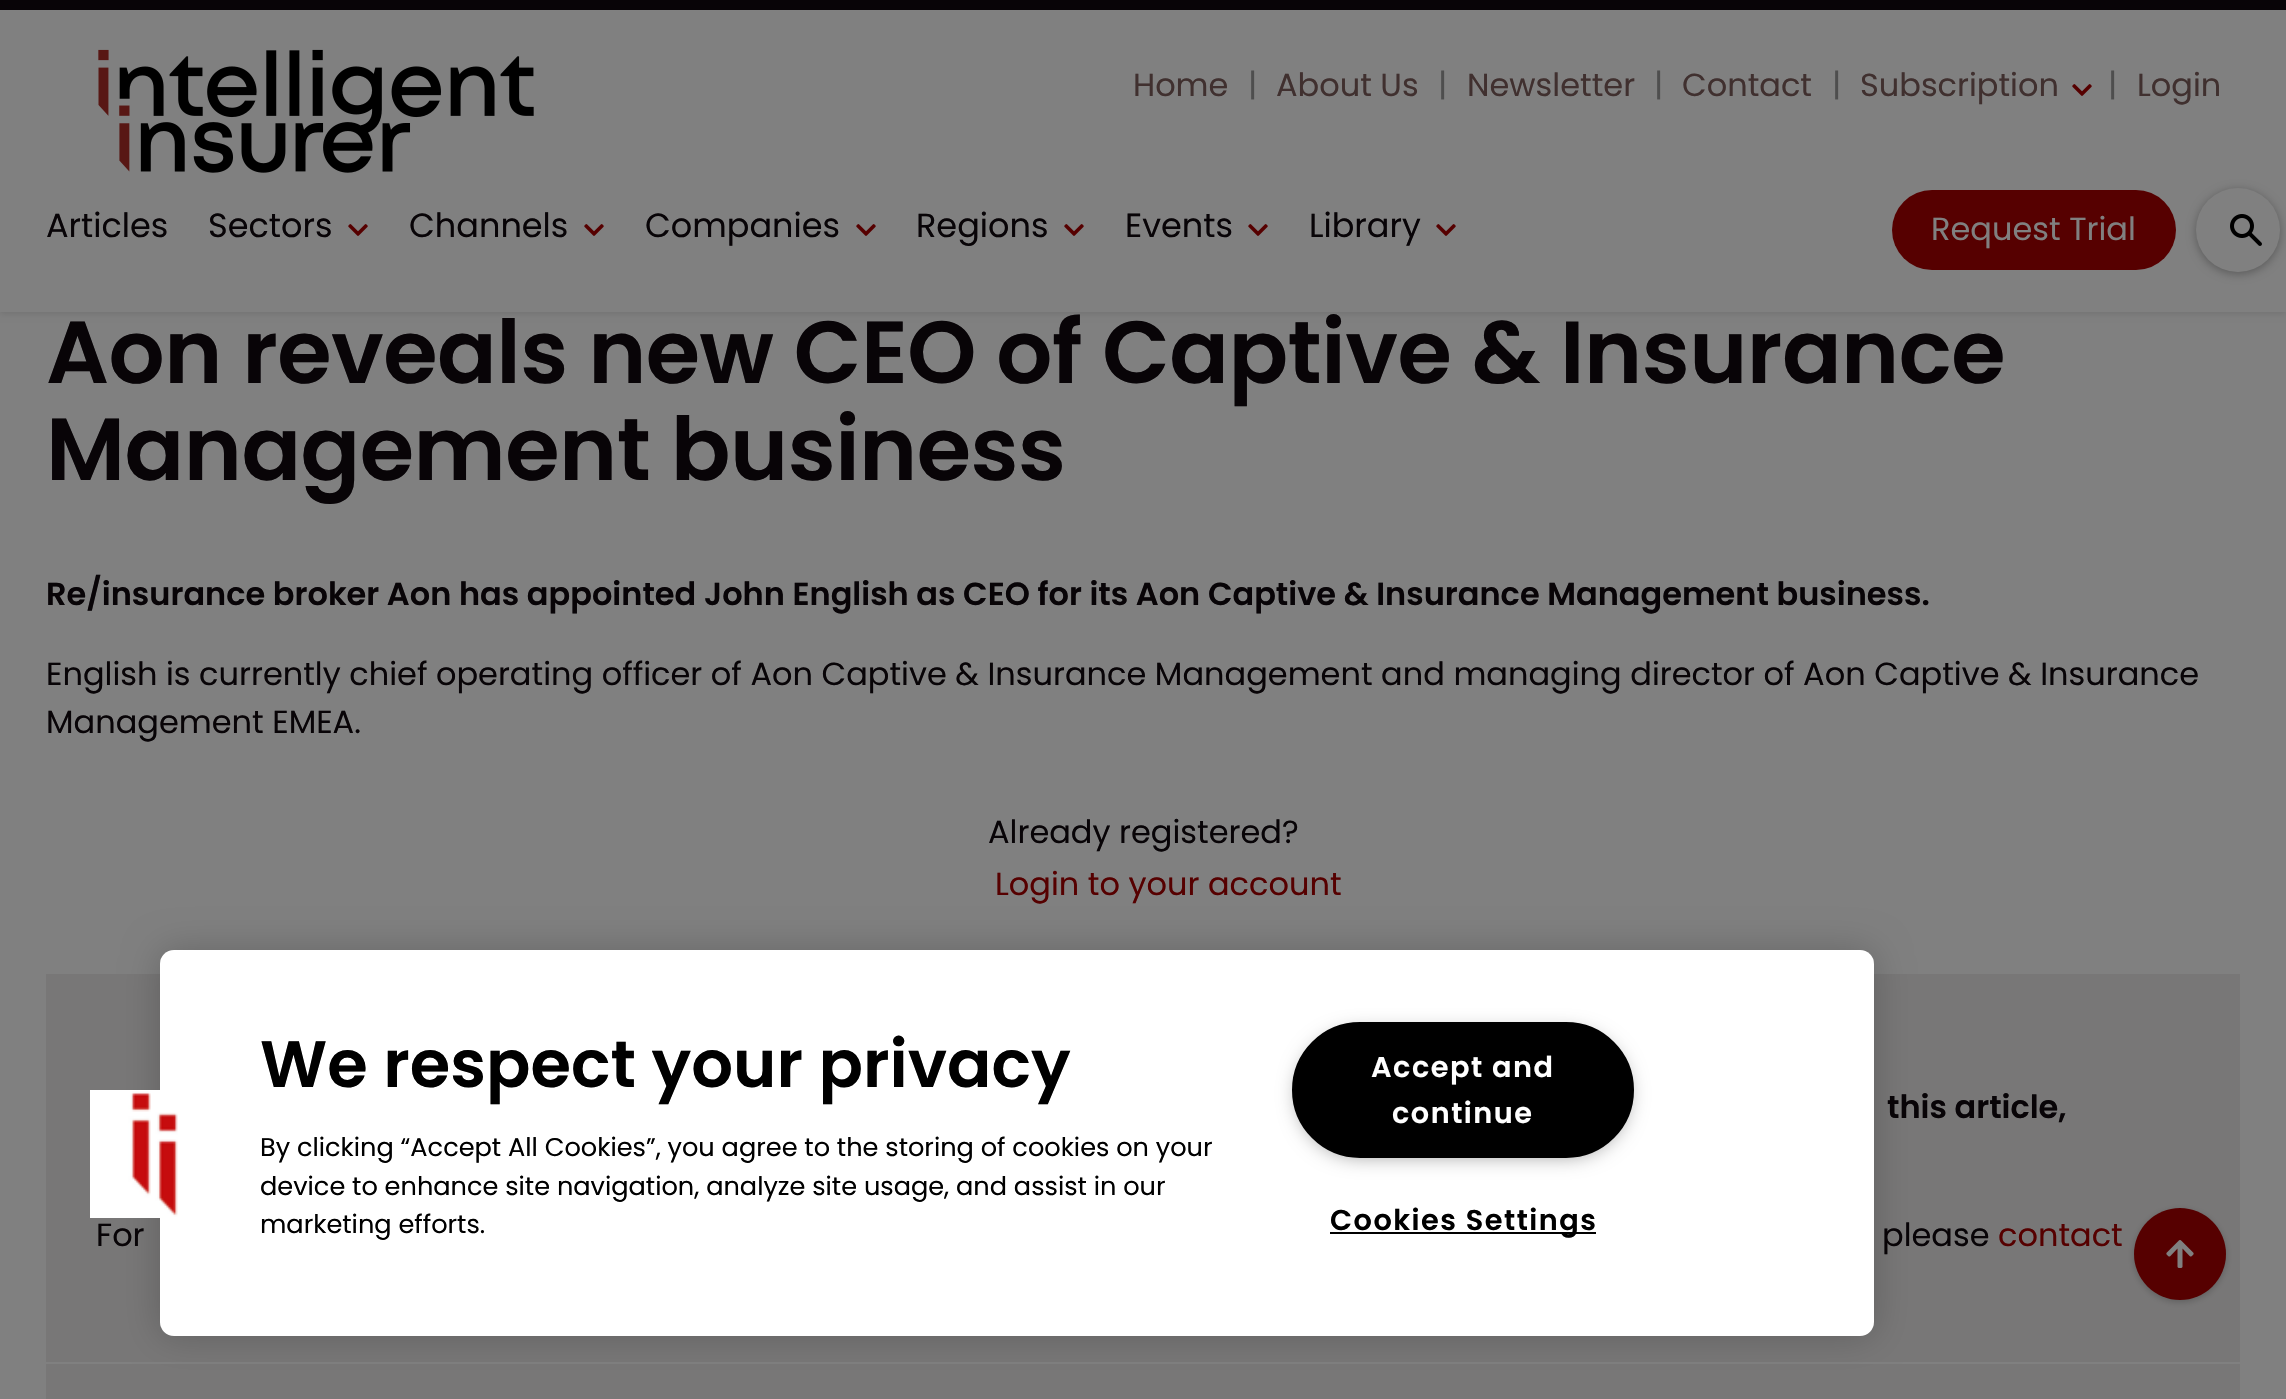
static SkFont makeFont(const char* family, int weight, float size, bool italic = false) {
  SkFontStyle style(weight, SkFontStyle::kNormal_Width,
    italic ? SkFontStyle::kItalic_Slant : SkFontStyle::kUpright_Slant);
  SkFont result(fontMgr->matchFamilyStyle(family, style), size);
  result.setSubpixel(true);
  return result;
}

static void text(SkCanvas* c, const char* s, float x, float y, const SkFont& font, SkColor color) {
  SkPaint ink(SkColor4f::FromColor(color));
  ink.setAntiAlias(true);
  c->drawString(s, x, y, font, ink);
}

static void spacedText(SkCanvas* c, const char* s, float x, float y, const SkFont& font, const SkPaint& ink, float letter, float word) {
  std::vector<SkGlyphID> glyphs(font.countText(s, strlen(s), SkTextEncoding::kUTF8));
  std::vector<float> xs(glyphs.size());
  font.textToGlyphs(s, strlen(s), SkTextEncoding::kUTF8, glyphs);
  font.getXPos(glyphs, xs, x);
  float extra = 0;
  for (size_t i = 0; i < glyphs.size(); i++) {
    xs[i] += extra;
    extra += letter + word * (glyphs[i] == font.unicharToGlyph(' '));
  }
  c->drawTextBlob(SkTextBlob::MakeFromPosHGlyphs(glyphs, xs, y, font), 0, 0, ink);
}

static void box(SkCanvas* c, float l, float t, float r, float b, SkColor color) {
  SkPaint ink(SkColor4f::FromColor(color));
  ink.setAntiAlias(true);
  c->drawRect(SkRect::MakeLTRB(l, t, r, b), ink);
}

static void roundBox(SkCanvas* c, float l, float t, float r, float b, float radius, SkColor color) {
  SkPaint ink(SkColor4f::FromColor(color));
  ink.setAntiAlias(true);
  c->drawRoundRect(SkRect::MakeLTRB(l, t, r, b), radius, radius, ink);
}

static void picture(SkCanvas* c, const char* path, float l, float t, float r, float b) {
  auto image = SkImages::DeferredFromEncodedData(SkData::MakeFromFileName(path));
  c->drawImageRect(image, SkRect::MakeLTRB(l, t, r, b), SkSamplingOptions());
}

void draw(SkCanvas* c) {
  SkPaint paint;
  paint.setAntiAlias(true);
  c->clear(0xff808080);
  paint.setColor(0x1a000000);
  paint.setMaskFilter(SkMaskFilter::MakeBlur(kNormal_SkBlurStyle, 3));
  c->drawRect(SkRect::MakeLTRB(0, 2, 2286, 314), paint);
  paint.setMaskFilter(nullptr);
  box(c, 0, 10, 2286, 312, 0xff808080);
  box(c, 0, 0, 2286, 10, 0xff080407);
  picture(c, "img_01.png", 98, 49, 534, 173);
  SkFont face1 = makeFont("Poppins", 400, 33.5f);
  text(c, "Articles", 46, 237, face1, 0xff080407);
  text(c, "Sectors", 208, 237, face1, 0xff080407);
  picture(c, "img_02.png", 348, 224, 368, 236);
  text(c, "Channels", 409, 237, face1, 0xff080407);
  picture(c, "img_02.png", 584, 224, 604, 236);
  text(c, "Companies", 645, 237, face1, 0xff080407);
  picture(c, "img_02.png", 856, 224, 876, 236);
  text(c, "Regions", 916, 237, face1, 0xff080407);
  picture(c, "img_02.png", 1064, 224, 1084, 236);
  text(c, "Events", 1125, 237, face1, 0xff080407);
  picture(c, "img_02.png", 1248, 224, 1268, 236);
  text(c, "Library", 1309, 237, face1, 0xff080407);
  picture(c, "img_02.png", 1436, 224, 1456, 236);
  SkFont face2 = makeFont("Poppins", 400, 32);
  text(c, "Home", 1133, 96, face2, 0xff40302f);
  text(c, "|", 1248, 96, face2, 0xff4e4e4e);
  text(c, "About Us", 1276, 96, face2, 0xff40302f);
  text(c, "|", 1438, 96, face2, 0xff4e4e4e);
  text(c, "Newsletter", 1467, 96, face2, 0xff40302f);
  text(c, "|", 1654, 96, face2, 0xff4e4e4e);
  text(c, "Contact", 1682, 96, face2, 0xff40302f);
  text(c, "|", 1832, 96, face2, 0xff4e4e4e);
  text(c, "Subscription", 1860, 96, face2, 0xff40302f);
  picture(c, "img_02.png", 2072, 84, 2092, 96);
  text(c, "|", 2108, 96, face2, 0xff4e4e4e);
  text(c, "Login", 2137, 96, face2, 0xff40302f);
  roundBox(c, 1892, 190, 2176, 270, 40, 0xff560000);
  text(c, "Request Trial", 1931, 240, face2, 0xff808080);
  paint.setColor(0x4d000000);
  paint.setMaskFilter(SkMaskFilter::MakeBlur(kNormal_SkBlurStyle, 5));
  c->drawRoundRect(SkRect::MakeLTRB(2196, 190, 2280, 274), 42, 42, paint);
  paint.setMaskFilter(nullptr);
  paint.setColor(0xff808080);
  c->drawCircle(2238, 230, 42, paint);
  picture(c, "img_03.png", 2230, 214, 2262, 246);
  SkFont face3 = makeFont("Poppins", 600, 88);
  paint.setColor(0xff080407);
  spacedText(c, "Aon reveals new CEO of Captive & Insurance", 46, 383, face3, paint, -0.5f, 0);
  spacedText(c, "Management business", 46, 480, face3, paint, -0.5f, 0);
  SkFont face4 = makeFont("Poppins", 600, 32);
  text(c, "Re/insurance broker Aon has appointed John English as CEO for its Aon Captive & Insurance Management business.", 46, 605, face4, 0xff080407);
  text(c, "English is currently chief operating officer of Aon Captive & Insurance Management and managing director of Aon Captive & Insurance", 46, 685, face2, 0xff080407);
  text(c, "Management EMEA.", 46, 733, face2, 0xff080407);
  text(c, "Already registered?", 988, 843, face2, 0xff080407);
  text(c, "Login to your account", 995, 895, face2, 0xff560000);
  box(c, 46, 974, 2240, 1362, 0xff787777);
  text(c, "this article,", 1887, 1118, face4, 0xff080407);
  text(c, "For", 96, 1246, face2, 0xff080407);
  text(c, "please", 1882, 1246, face2, 0xff080407);
  text(c, "contact", 1998, 1246, face2, 0xff560000);
  box(c, 46, 1364, 2240, 1399, 0xff787777);
  paint.setColor(0x33000000);
  paint.setMaskFilter(SkMaskFilter::MakeBlur(kNormal_SkBlurStyle, 3));
  c->drawRoundRect(SkRect::MakeLTRB(2134, 1210, 2226, 1302), 46, 46, paint);
  paint.setMaskFilter(nullptr);
  paint.setColor(0xff560000);
  c->drawCircle(2180, 1254, 46, paint);
  picture(c, "img_04.png", 2166, 1240, 2194, 1268);
  paint.setColor(0x33000000);
  paint.setMaskFilter(SkMaskFilter::MakeBlur(kNormal_SkBlurStyle, 18));
  c->drawRoundRect(SkRect::MakeLTRB(160, 950, 1874, 1336), 14, 14, paint);
  paint.setMaskFilter(nullptr);
  roundBox(c, 160, 950, 1874, 1336, 14, 0xffffffff);
  picture(c, "img_05.png", 90, 1090, 178, 1218);
  SkFont face5 = makeFont("Poppins", 600, 65.6f);
  text(c, "We respect your privacy", 260, 1087, face5, 0xff000000);
  SkFont face6 = makeFont("Poppins", 400, 25.6f);
  text(c, "By clicking “Accept All Cookies”, you agree to the storing of cookies on your", 260, 1156, face6, 0xff000000);
  text(c, "device to enhance site navigation, analyze site usage, and assist in our", 260, 1195, face6, 0xff000000);
  text(c, "marketing efforts.", 260, 1233, face6, 0xff000000);
  paint.setColor(0xff999999);
  paint.setMaskFilter(SkMaskFilter::MakeBlur(kNormal_SkBlurStyle, 10));
  c->drawRoundRect(SkRect::MakeLTRB(1298, 1032, 1628, 1156), 62, 62, paint);
  paint.setMaskFilter(nullptr);
  paint.setColor(0xff000000);
  c->drawRoundRect(SkRect::MakeLTRB(1293, 1023, 1633, 1157), 67, 67, paint);
  paint.setStyle(SkPaint::kStroke_Style);
  paint.setStrokeWidth(2);
  c->drawRoundRect(SkRect::MakeLTRB(1293, 1023, 1633, 1157), 67, 67, paint);
  SkFont face7 = makeFont("Poppins", 600, 28.75f);
  paint.setStyle(SkPaint::kFill_Style);
  paint.setColor(0xffffffff);
  spacedText(c, "Accept and", 1371, 1077, face7, paint, 1.5f, 0);
  spacedText(c, "continue", 1392, 1123, face7, paint, 1.5f, 0);
  box(c, 1330, 1232, 1596, 1234, 0xff000000);
  paint.setColor(0xff000000);
  spacedText(c, "Cookies Settings", 1330, 1230, face7, paint, 1.5f, 0);
}
